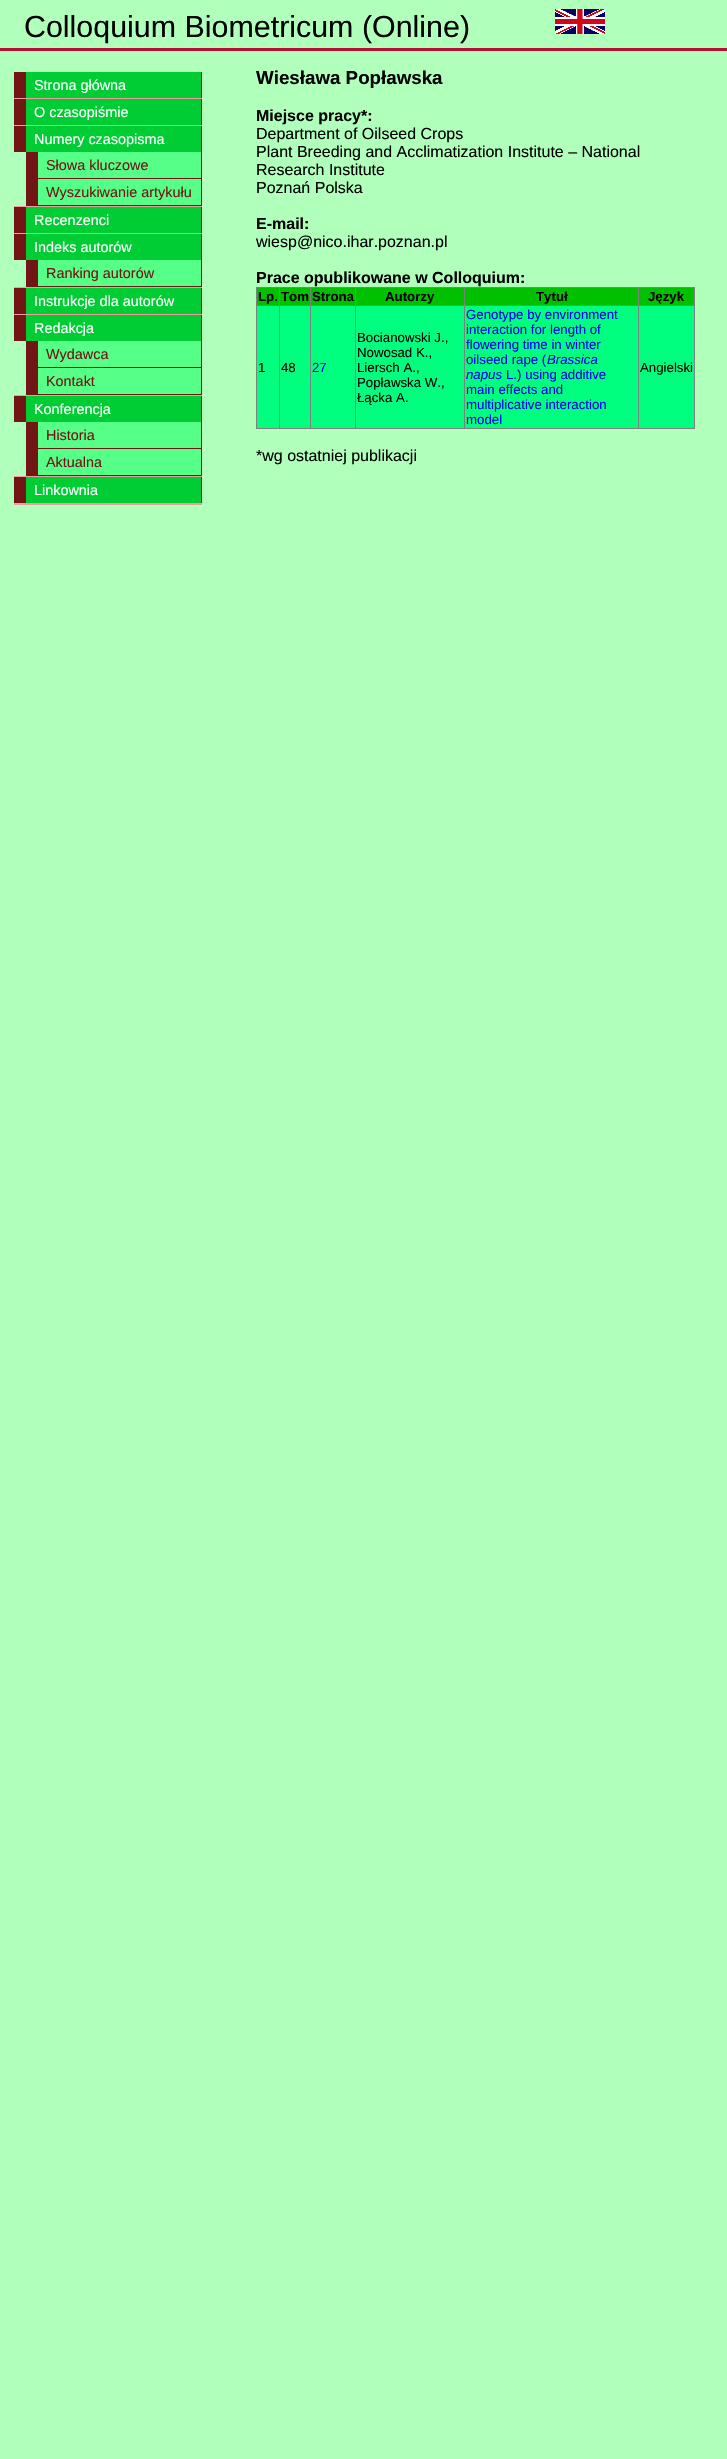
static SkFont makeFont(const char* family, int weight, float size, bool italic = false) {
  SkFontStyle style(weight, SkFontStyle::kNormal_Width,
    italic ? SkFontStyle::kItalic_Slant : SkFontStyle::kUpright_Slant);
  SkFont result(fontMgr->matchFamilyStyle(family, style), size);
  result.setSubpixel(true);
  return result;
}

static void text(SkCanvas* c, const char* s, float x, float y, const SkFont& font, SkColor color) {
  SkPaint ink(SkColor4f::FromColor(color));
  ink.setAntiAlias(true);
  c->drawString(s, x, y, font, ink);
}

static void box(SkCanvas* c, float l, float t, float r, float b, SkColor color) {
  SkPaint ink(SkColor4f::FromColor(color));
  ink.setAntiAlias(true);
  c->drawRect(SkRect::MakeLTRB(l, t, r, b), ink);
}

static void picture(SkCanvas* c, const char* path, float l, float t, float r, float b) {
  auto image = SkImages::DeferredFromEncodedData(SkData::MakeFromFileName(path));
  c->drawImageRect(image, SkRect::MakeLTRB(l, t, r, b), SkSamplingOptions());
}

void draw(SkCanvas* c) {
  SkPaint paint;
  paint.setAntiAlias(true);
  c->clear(0xffb0ffbb);
  box(c, 0, 48, 727, 51, 0xffb51032);
  SkFont face1 = makeFont("Liberation Sans", 400, 30.4f);
  text(c, "Colloquium Biometricum (Online)", 24, 37, face1, 0xff000000);
  picture(c, "img_01.png", 555, 9, 605, 34);
  box(c, 14, 98, 202, 99, 0xffed9f9f);
  box(c, 26, 72, 201, 98, 0xff00cc33);
  box(c, 201, 72, 202, 98, 0xff711515);
  box(c, 14, 72, 26, 98, 0xff711515);
  SkFont face2 = makeFont("Liberation Sans", 400, 14.4f);
  text(c, "Strona główna", 34, 90, face2, 0xffffffff);
  box(c, 14, 125, 202, 126, 0xffed9f9f);
  box(c, 26, 99, 201, 125, 0xff00cc33);
  box(c, 201, 99, 202, 125, 0xff711515);
  box(c, 14, 99, 26, 125, 0xff711515);
  text(c, "O czasopiśmie", 34, 117, face2, 0xffffffff);
  box(c, 14, 206, 202, 207, 0xffed9f9f);
  box(c, 26, 126, 201, 152, 0xff00cc33);
  box(c, 201, 126, 202, 178, 0xff711515);
  box(c, 14, 126, 26, 152, 0xff711515);
  text(c, "Numery czasopisma", 34, 144, face2, 0xffffffff);
  box(c, 26, 178, 202, 179, 0xff711515);
  box(c, 38, 152, 201, 178, 0xff55ff88);
  box(c, 26, 152, 38, 178, 0xff711515);
  text(c, "Słowa kluczowe", 46, 170, face2, 0xff711515);
  box(c, 26, 205, 202, 206, 0xff711515);
  box(c, 38, 179, 201, 205, 0xff55ff88);
  box(c, 201, 179, 202, 205, 0xff711515);
  box(c, 26, 179, 38, 205, 0xff711515);
  text(c, "Wyszukiwanie artykułu", 46, 197, face2, 0xff711515);
  box(c, 14, 233, 202, 234, 0xffed9f9f);
  box(c, 26, 207, 201, 233, 0xff00cc33);
  box(c, 201, 207, 202, 233, 0xff711515);
  box(c, 14, 207, 26, 233, 0xff711515);
  text(c, "Recenzenci", 34, 225, face2, 0xffffffff);
  box(c, 14, 287, 202, 288, 0xffed9f9f);
  box(c, 26, 234, 201, 260, 0xff00cc33);
  box(c, 201, 234, 202, 286, 0xff711515);
  box(c, 14, 234, 26, 260, 0xff711515);
  text(c, "Indeks autorów", 34, 252, face2, 0xffffffff);
  box(c, 26, 286, 202, 287, 0xff711515);
  box(c, 38, 260, 201, 286, 0xff55ff88);
  box(c, 26, 260, 38, 286, 0xff711515);
  text(c, "Ranking autorów", 46, 278, face2, 0xff711515);
  box(c, 14, 314, 202, 315, 0xffed9f9f);
  box(c, 26, 288, 201, 314, 0xff00cc33);
  box(c, 201, 288, 202, 314, 0xff711515);
  box(c, 14, 288, 26, 314, 0xff711515);
  text(c, "Instrukcje dla autorów", 34, 306, face2, 0xffffffff);
  box(c, 14, 395, 202, 396, 0xffed9f9f);
  box(c, 26, 315, 201, 341, 0xff00cc33);
  box(c, 201, 315, 202, 367, 0xff711515);
  box(c, 14, 315, 26, 341, 0xff711515);
  text(c, "Redakcja", 34, 333, face2, 0xffffffff);
  box(c, 26, 367, 202, 368, 0xff711515);
  box(c, 38, 341, 201, 367, 0xff55ff88);
  box(c, 26, 341, 38, 367, 0xff711515);
  text(c, "Wydawca", 46, 359, face2, 0xff711515);
  box(c, 26, 394, 202, 395, 0xff711515);
  box(c, 38, 368, 201, 394, 0xff55ff88);
  box(c, 201, 368, 202, 394, 0xff711515);
  box(c, 26, 368, 38, 394, 0xff711515);
  text(c, "Kontakt", 46, 386, face2, 0xff711515);
  box(c, 14, 476, 202, 477, 0xffed9f9f);
  box(c, 26, 396, 201, 422, 0xff00cc33);
  box(c, 201, 396, 202, 448, 0xff711515);
  box(c, 14, 396, 26, 422, 0xff711515);
  text(c, "Konferencja", 34, 414, face2, 0xffffffff);
  box(c, 26, 448, 202, 449, 0xff711515);
  box(c, 38, 422, 201, 448, 0xff55ff88);
  box(c, 26, 422, 38, 448, 0xff711515);
  text(c, "Historia", 46, 440, face2, 0xff711515);
  box(c, 26, 475, 202, 476, 0xff711515);
  box(c, 38, 449, 201, 475, 0xff55ff88);
  box(c, 201, 449, 202, 475, 0xff711515);
  box(c, 26, 449, 38, 475, 0xff711515);
  text(c, "Aktualna", 46, 467, face2, 0xff711515);
  box(c, 14, 503, 202, 505, 0xffed9f9f);
  box(c, 26, 477, 201, 503, 0xff00cc33);
  box(c, 201, 477, 202, 503, 0xff711515);
  box(c, 14, 477, 26, 503, 0xff711515);
  text(c, "Linkownia", 34, 495, face2, 0xffffffff);
  SkFont face3 = makeFont("Liberation Sans", 700, 18.75f);
  text(c, "Wiesława Popławska", 256, 84, face3, 0xff000000);
  SkFont face4 = makeFont("Liberation Sans", 700, 16);
  text(c, "Miejsce pracy*:", 256, 121, face4, 0xff000000);
  SkFont face5 = makeFont("Liberation Sans", 400, 16);
  text(c, "Department of Oilseed Crops", 256, 139, face5, 0xff000000);
  text(c, "Plant Breeding and Acclimatization Institute – National", 256, 157, face5, 0xff000000);
  text(c, "Research Institute", 256, 175, face5, 0xff000000);
  text(c, "Poznań Polska", 256, 193, face5, 0xff000000);
  text(c, "E-mail:", 256, 229, face4, 0xff000000);
  text(c, "wiesp@nico.ihar.poznan.pl", 256, 247, face5, 0xff000000);
  text(c, "Prace opublikowane w Colloquium:", 256, 283, face4, 0xff000000);
  box(c, 256, 287, 695, 288, 0xff808080);
  box(c, 694, 287, 695, 429, 0xff808080);
  box(c, 256, 428, 695, 429, 0xff808080);
  box(c, 256, 287, 257, 429, 0xff808080);
  box(c, 257, 288, 694, 305, 0xff00c000);
  SkFont face6 = makeFont("Liberation Sans", 700, 13.25f);
  text(c, "Lp.", 258, 301, face6, 0xff000000);
  box(c, 638, 305, 695, 306, 0xff808080);
  box(c, 257, 306, 694, 428, 0xff00ff7f);
  box(c, 638, 305, 639, 429, 0xff808080);
  box(c, 464, 305, 639, 306, 0xff808080);
  box(c, 464, 305, 465, 429, 0xff808080);
  box(c, 355, 305, 465, 306, 0xff808080);
  box(c, 355, 305, 356, 429, 0xff808080);
  box(c, 310, 305, 356, 306, 0xff808080);
  box(c, 310, 305, 311, 429, 0xff808080);
  box(c, 279, 305, 311, 306, 0xff808080);
  box(c, 279, 305, 280, 429, 0xff808080);
  box(c, 256, 305, 280, 306, 0xff808080);
  box(c, 279, 287, 280, 306, 0xff808080);
  text(c, "Tom", 281, 301, face6, 0xff000000);
  box(c, 310, 287, 311, 306, 0xff808080);
  text(c, "Strona", 312, 301, face6, 0xff000000);
  box(c, 355, 287, 356, 306, 0xff808080);
  text(c, "Autorzy", 385, 301, face6, 0xff000000);
  box(c, 464, 287, 465, 306, 0xff808080);
  text(c, "Tytuł", 536, 301, face6, 0xff000000);
  box(c, 638, 287, 639, 306, 0xff808080);
  text(c, "Język", 648, 301, face6, 0xff000000);
  SkFont face7 = makeFont("Liberation Sans", 400, 13.25f);
  text(c, "1", 258, 372, face7, 0xff000000);
  text(c, "48", 281, 372, face7, 0xff000000);
  text(c, "27", 312, 372, face7, 0xff0000ee);
  text(c, "Bocianowski J.,", 357, 342, face7, 0xff000000);
  text(c, "Nowosad K.,", 357, 357, face7, 0xff000000);
  text(c, "Liersch A.,", 357, 372, face7, 0xff000000);
  text(c, "Popławska W.,", 357, 387, face7, 0xff000000);
  text(c, "Łącka A.", 357, 402, face7, 0xff000000);
  text(c, "Genotype by environment", 466, 319, face7, 0xff0000ee);
  text(c, "interaction for length of", 466, 334, face7, 0xff0000ee);
  text(c, "flowering time in winter", 466, 349, face7, 0xff0000ee);
  text(c, "oilseed rape (", 466, 364, face7, 0xff0000ee);
  SkFont face8 = makeFont("Liberation Sans", 400, 13.25f, true);
  text(c, "Brassica", 547, 364, face8, 0xff0000ee);
  text(c, "napus", 466, 379, face8, 0xff0000ee);
  text(c, "L.) using additive", 506, 379, face7, 0xff0000ee);
  text(c, "main effects and", 466, 394, face7, 0xff0000ee);
  text(c, "multiplicative interaction", 466, 409, face7, 0xff0000ee);
  text(c, "model", 466, 424, face7, 0xff0000ee);
  text(c, "Angielski", 640, 372, face7, 0xff000000);
  text(c, "*wg ostatniej publikacji", 256, 461, face5, 0xff000000);
}
